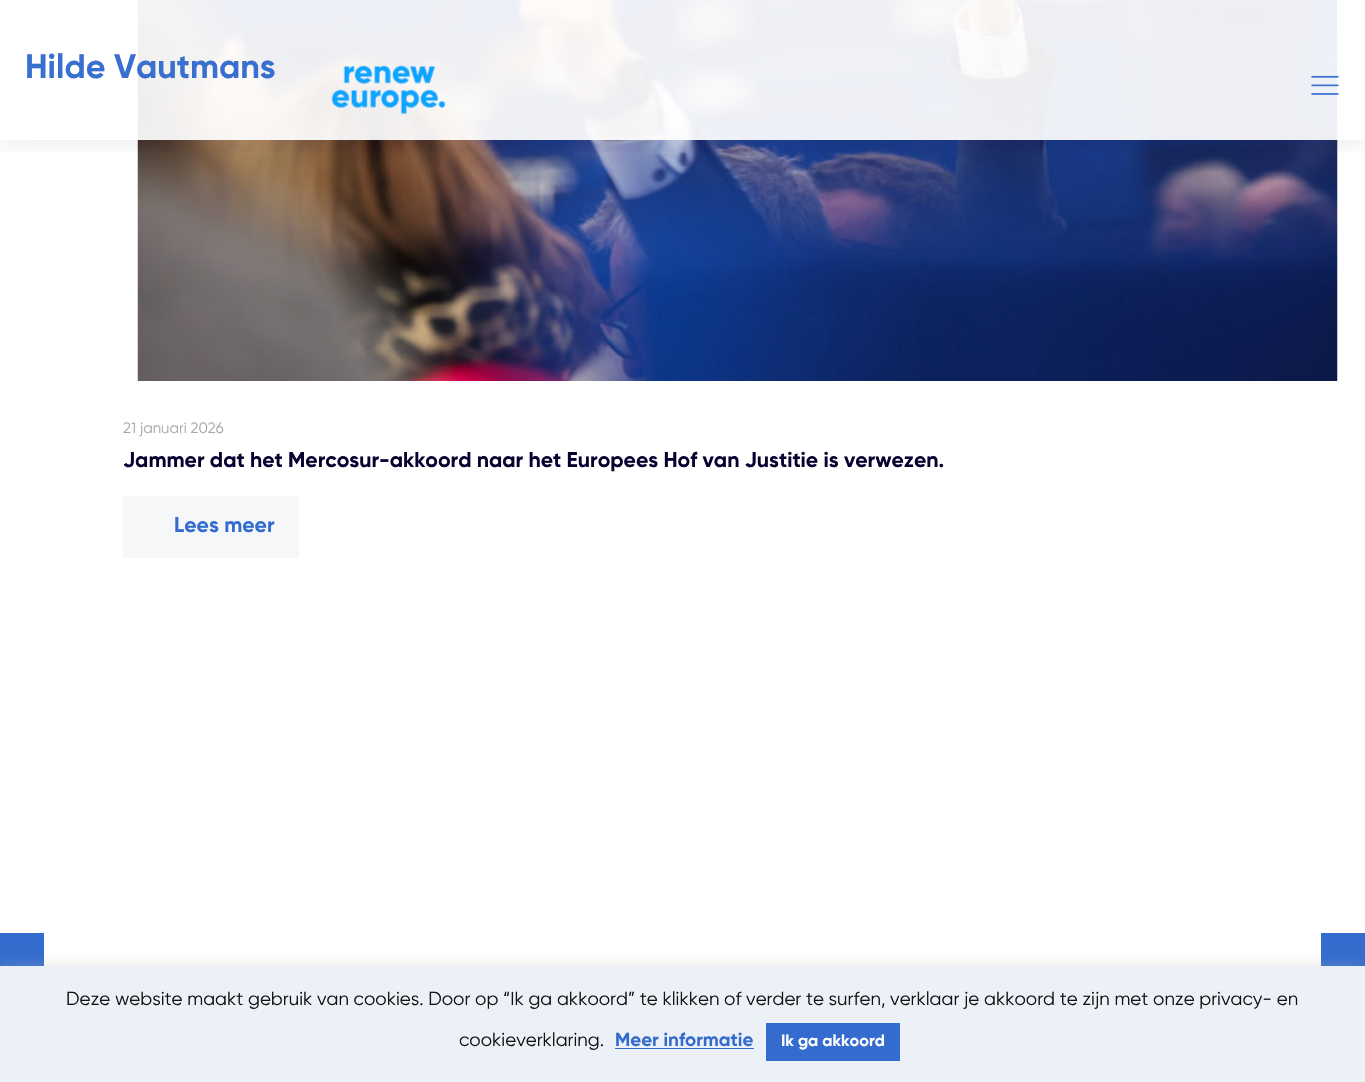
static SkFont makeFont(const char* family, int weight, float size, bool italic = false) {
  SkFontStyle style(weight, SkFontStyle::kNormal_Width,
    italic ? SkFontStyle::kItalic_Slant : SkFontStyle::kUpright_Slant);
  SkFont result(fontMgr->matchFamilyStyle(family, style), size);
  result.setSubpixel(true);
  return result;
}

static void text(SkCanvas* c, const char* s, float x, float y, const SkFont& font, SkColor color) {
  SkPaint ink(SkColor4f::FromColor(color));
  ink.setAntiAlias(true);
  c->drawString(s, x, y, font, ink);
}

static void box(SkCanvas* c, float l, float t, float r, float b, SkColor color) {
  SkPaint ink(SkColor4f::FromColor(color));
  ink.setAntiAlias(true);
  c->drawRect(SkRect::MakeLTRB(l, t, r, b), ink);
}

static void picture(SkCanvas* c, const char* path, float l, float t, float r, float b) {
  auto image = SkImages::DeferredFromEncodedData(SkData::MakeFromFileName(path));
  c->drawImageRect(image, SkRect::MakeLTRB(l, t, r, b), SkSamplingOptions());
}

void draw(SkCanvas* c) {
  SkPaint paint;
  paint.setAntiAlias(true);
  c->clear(0xffffffff);
  picture(c, "img_03.png", 137, 0, 1338, 381);
  c->save();
  c->clipRect(SkRect::MakeLTRB(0, 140, 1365, 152));
  paint.setColor(0x1a08002f);
  paint.setMaskFilter(SkMaskFilter::MakeBlur(kNormal_SkBlurStyle, 12.5f));
  c->drawRect(SkRect::MakeLTRB(0, 1, 1365, 141), paint);
  paint.setMaskFilter(nullptr);
  c->restore();
  box(c, 137, 0, 1338, 140, 0xebffffff);
  SkFont face1 = makeFont("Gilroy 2", 400, 34);
  text(c, "Hilde Vautmans", 25, 78, face1, 0xff3970cf);
  picture(c, "img_01.png", 331, 65, 446, 115);
  picture(c, "img_02.png", 1311, 75, 1339, 95);
  SkFont face2 = makeFont("Gilroy", 400, 15);
  text(c, "21 januari 2026", 123, 433, face2, 0xffa8a8a8);
  SkFont face3 = makeFont("Gilroy 2", 400, 21.25f);
  text(c, "Jammer dat het Mercosur-akkoord naar het Europees Hof van Justitie is verwezen.", 123, 467, face3, 0xff08002f);
  box(c, 123, 496, 299, 558, 0xfff5f7f8);
  text(c, "Lees meer", 174, 532, face3, 0xff336cce);
  box(c, 0, 933, 44, 966, 0xff336cce);
  box(c, 1321, 933, 1365, 966, 0xff336cce);
  paint.setColor(0x4dacabab);
  paint.setMaskFilter(SkMaskFilter::MakeBlur(kNormal_SkBlurStyle, 6));
  c->drawRect(SkRect::MakeLTRB(0, 965, 1365, 1081), paint);
  paint.setMaskFilter(nullptr);
  box(c, 0, 966, 1365, 1082, 0xffecf0f7);
  SkFont face4 = makeFont("Gilroy", 400, 18.75f);
  text(c, "Deze website maakt gebruik van cookies. Door op “Ik ga akkoord” te klikken of verder te surfen, verklaar je akkoord te zijn met onze privacy- en", 66, 1005, face4, 0xff121212);
  text(c, "cookieverklaring.", 459, 1046, face4, 0xff121212);
  SkFont face5 = makeFont("Gilroy 2", 400, 18.75f);
  text(c, "Meer informatie", 615, 1046, face5, 0xff336cce);
  box(c, 615, 1048, 754, 1049, 0xff336cce);
  box(c, 766, 1023, 900, 1061, 0xff336cce);
  SkFont face6 = makeFont("Gilroy 2", 400, 16.25f);
  text(c, "Ik ga akkoord", 781, 1046, face6, 0xffffffff);
}
